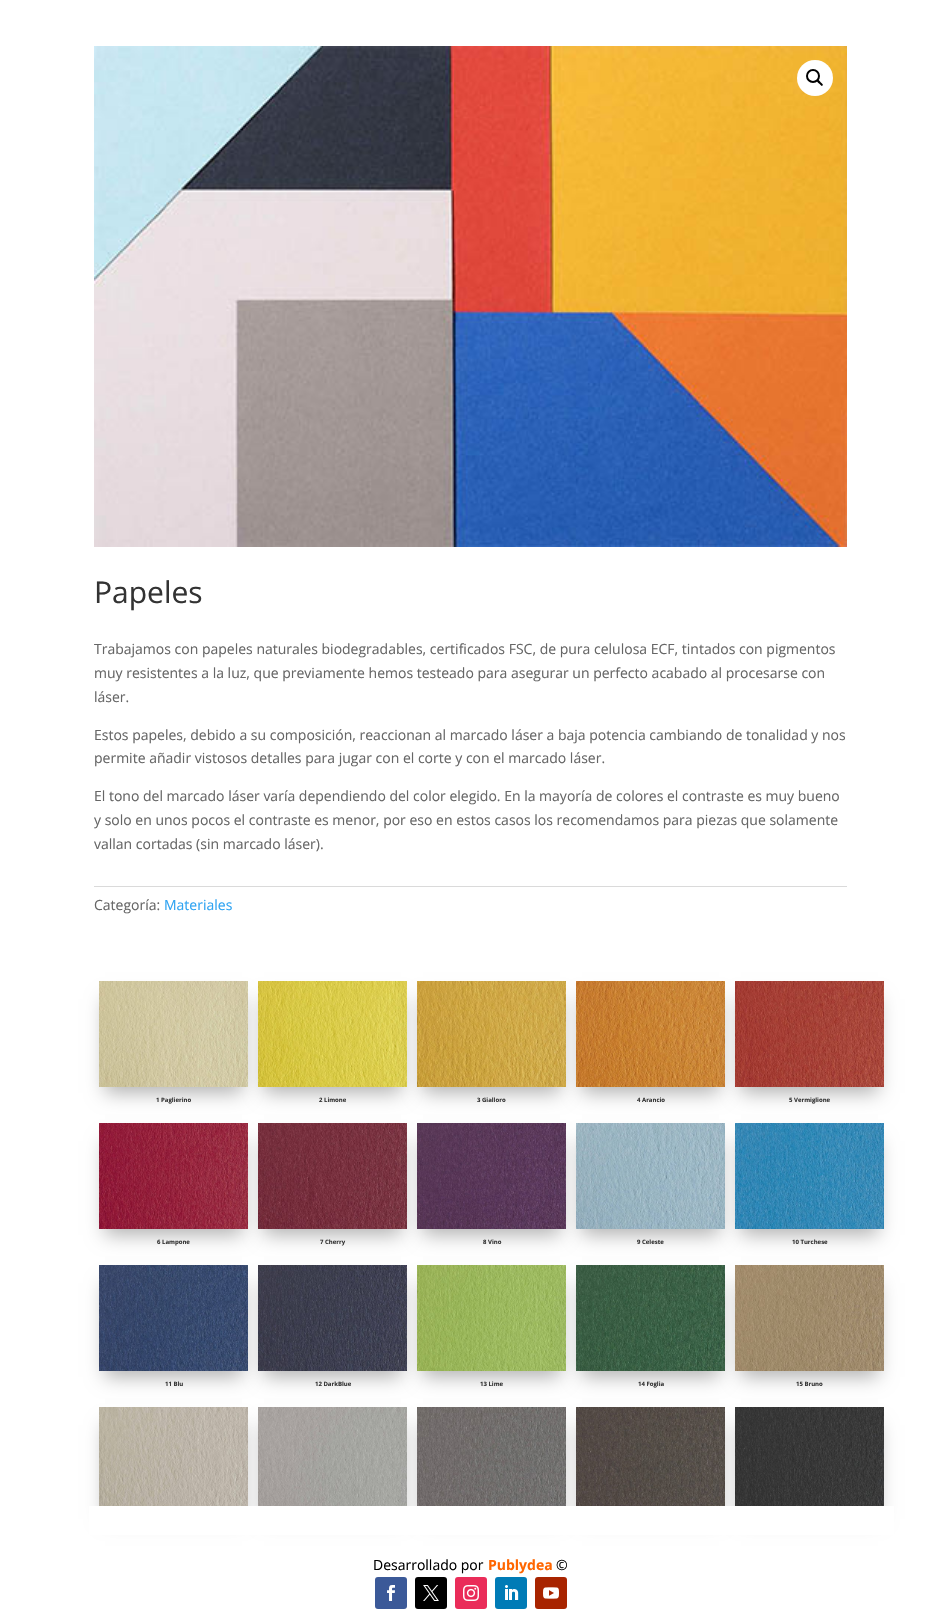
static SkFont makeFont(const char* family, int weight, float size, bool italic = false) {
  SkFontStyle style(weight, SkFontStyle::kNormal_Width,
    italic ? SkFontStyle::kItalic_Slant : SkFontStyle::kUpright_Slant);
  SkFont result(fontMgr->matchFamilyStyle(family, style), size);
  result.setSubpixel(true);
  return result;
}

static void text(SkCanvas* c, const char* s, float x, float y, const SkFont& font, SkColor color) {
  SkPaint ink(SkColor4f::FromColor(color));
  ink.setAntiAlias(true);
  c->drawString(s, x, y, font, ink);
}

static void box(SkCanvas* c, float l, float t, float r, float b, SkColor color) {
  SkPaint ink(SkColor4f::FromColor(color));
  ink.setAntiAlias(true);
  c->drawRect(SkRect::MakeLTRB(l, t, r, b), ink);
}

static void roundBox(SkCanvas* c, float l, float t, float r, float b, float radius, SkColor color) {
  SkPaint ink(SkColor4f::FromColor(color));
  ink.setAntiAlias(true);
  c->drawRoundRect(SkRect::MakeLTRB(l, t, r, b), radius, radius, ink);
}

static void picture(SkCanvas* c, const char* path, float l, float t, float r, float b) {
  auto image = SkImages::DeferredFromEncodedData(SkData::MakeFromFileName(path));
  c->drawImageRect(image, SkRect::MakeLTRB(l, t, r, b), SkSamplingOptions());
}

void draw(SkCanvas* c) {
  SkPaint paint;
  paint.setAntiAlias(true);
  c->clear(0xffffffff);
  picture(c, "img_01.png", 94, 46, 847, 547);
  paint.setColor(0xffffffff);
  c->drawCircle(815, 78, 18, paint);
  paint.setStyle(SkPaint::kStroke_Style);
  paint.setStrokeWidth(2);
  paint.setColor(0xff000000);
  c->drawCircle(813, 76, 6, paint);
  paint.setStyle(SkPaint::kFill_Style);
  c->drawPath(SkPathBuilder().moveTo(817, 80).cubicTo(818.5f, 79, 820, 81.5f, 820.5f, 82).cubicTo(821, 83, 824, 84.5f, 822.5f, 85.5f).cubicTo(821.5f, 87, 820, 84, 819, 83.5f).cubicTo(818.5f, 83, 816, 81, 817, 80).close().detach(), paint);
  SkFont face1 = makeFont("Open Sans", 400, 30);
  text(c, "Papeles", 94, 603, face1, 0xff333333);
  SkFont face2 = makeFont("Open Sans", 400, 14);
  text(c, "Trabajamos con papeles naturales biodegradables, certificados FSC, de pura celulosa ECF, tintados con pigmentos", 94, 654, face2, 0xff666666);
  text(c, "muy resistentes a la luz, que previamente hemos testeado para asegurar un perfecto acabado al procesarse con", 94, 678, face2, 0xff666666);
  text(c, "láser.", 94, 702, face2, 0xff666666);
  text(c, "Estos papeles, debido a su composición, reaccionan al marcado láser a baja potencia cambiando de tonalidad y nos", 94, 740, face2, 0xff666666);
  text(c, "permite añadir vistosos detalles para jugar con el corte y con el marcado láser.", 94, 763, face2, 0xff666666);
  text(c, "El tono del marcado láser varía dependiendo del color elegido. En la mayoría de colores el contraste es muy bueno", 94, 801, face2, 0xff666666);
  text(c, "y solo en unos pocos el contraste es menor, por eso en estos casos los recomendamos para piezas que solamente", 94, 825, face2, 0xff666666);
  text(c, "vallan cortadas (sin marcado láser).", 94, 849, face2, 0xff666666);
  box(c, 94, 886, 847, 887, 0xffdadada);
  text(c, "Categoría:", 94, 910, face2, 0xff666666);
  text(c, "Materiales", 164, 910, face2, 0xff2ea3f2);
  paint.setColor(0x4d000000);
  paint.setMaskFilter(SkMaskFilter::MakeBlur(kNormal_SkBlurStyle, 9));
  c->drawRect(SkRect::MakeLTRB(105, 999, 242, 1093), paint);
  paint.setMaskFilter(nullptr);
  picture(c, "img_02.png", 99, 981, 248, 1087);
  SkFont face3 = makeFont("Open Sans", 700, 6);
  text(c, "1 Paglierino", 156, 1102, face3, 0xff333333);
  paint.setMaskFilter(SkMaskFilter::MakeBlur(kNormal_SkBlurStyle, 9));
  c->drawRect(SkRect::MakeLTRB(264, 999, 401, 1093), paint);
  paint.setMaskFilter(nullptr);
  picture(c, "img_03.png", 258, 981, 407, 1087);
  text(c, "2 Limone", 319, 1102, face3, 0xff333333);
  paint.setMaskFilter(SkMaskFilter::MakeBlur(kNormal_SkBlurStyle, 9));
  c->drawRect(SkRect::MakeLTRB(423, 999, 560, 1093), paint);
  paint.setMaskFilter(nullptr);
  picture(c, "img_04.png", 417, 981, 566, 1087);
  text(c, "3 Gialloro", 477, 1102, face3, 0xff333333);
  paint.setMaskFilter(SkMaskFilter::MakeBlur(kNormal_SkBlurStyle, 9));
  c->drawRect(SkRect::MakeLTRB(582, 999, 719, 1093), paint);
  paint.setMaskFilter(nullptr);
  picture(c, "img_05.png", 576, 981, 725, 1087);
  text(c, "4 Arancio", 637, 1102, face3, 0xff333333);
  paint.setMaskFilter(SkMaskFilter::MakeBlur(kNormal_SkBlurStyle, 9));
  c->drawRect(SkRect::MakeLTRB(741, 999, 878, 1093), paint);
  paint.setMaskFilter(nullptr);
  picture(c, "img_06.png", 735, 981, 884, 1087);
  text(c, "5 Vermiglione", 789, 1102, face3, 0xff333333);
  paint.setMaskFilter(SkMaskFilter::MakeBlur(kNormal_SkBlurStyle, 9));
  c->drawRect(SkRect::MakeLTRB(105, 1141, 242, 1235), paint);
  paint.setMaskFilter(nullptr);
  picture(c, "img_07.png", 99, 1123, 248, 1229);
  text(c, "6 Lampone", 157, 1244, face3, 0xff333333);
  paint.setMaskFilter(SkMaskFilter::MakeBlur(kNormal_SkBlurStyle, 9));
  c->drawRect(SkRect::MakeLTRB(264, 1141, 401, 1235), paint);
  paint.setMaskFilter(nullptr);
  picture(c, "img_08.png", 258, 1123, 407, 1229);
  text(c, "7 Cherry", 320, 1244, face3, 0xff333333);
  paint.setMaskFilter(SkMaskFilter::MakeBlur(kNormal_SkBlurStyle, 9));
  c->drawRect(SkRect::MakeLTRB(423, 1141, 560, 1235), paint);
  paint.setMaskFilter(nullptr);
  picture(c, "img_09.png", 417, 1123, 566, 1229);
  text(c, "8 Vino", 483, 1244, face3, 0xff333333);
  paint.setMaskFilter(SkMaskFilter::MakeBlur(kNormal_SkBlurStyle, 9));
  c->drawRect(SkRect::MakeLTRB(582, 1141, 719, 1235), paint);
  paint.setMaskFilter(nullptr);
  picture(c, "img_10.png", 576, 1123, 725, 1229);
  text(c, "9 Celeste", 637, 1244, face3, 0xff333333);
  paint.setMaskFilter(SkMaskFilter::MakeBlur(kNormal_SkBlurStyle, 9));
  c->drawRect(SkRect::MakeLTRB(741, 1141, 878, 1235), paint);
  paint.setMaskFilter(nullptr);
  picture(c, "img_11.png", 735, 1123, 884, 1229);
  text(c, "10 Turchese", 792, 1244, face3, 0xff333333);
  paint.setMaskFilter(SkMaskFilter::MakeBlur(kNormal_SkBlurStyle, 9));
  c->drawRect(SkRect::MakeLTRB(105, 1283, 242, 1377), paint);
  paint.setMaskFilter(nullptr);
  picture(c, "img_12.png", 99, 1265, 248, 1371);
  text(c, "11 Blu", 165, 1386, face3, 0xff333333);
  paint.setMaskFilter(SkMaskFilter::MakeBlur(kNormal_SkBlurStyle, 9));
  c->drawRect(SkRect::MakeLTRB(264, 1283, 401, 1377), paint);
  paint.setMaskFilter(nullptr);
  picture(c, "img_13.png", 258, 1265, 407, 1371);
  text(c, "12 DarkBlue", 315, 1386, face3, 0xff333333);
  paint.setMaskFilter(SkMaskFilter::MakeBlur(kNormal_SkBlurStyle, 9));
  c->drawRect(SkRect::MakeLTRB(423, 1283, 560, 1377), paint);
  paint.setMaskFilter(nullptr);
  picture(c, "img_14.png", 417, 1265, 566, 1371);
  text(c, "13 Lime", 480, 1386, face3, 0xff333333);
  paint.setMaskFilter(SkMaskFilter::MakeBlur(kNormal_SkBlurStyle, 9));
  c->drawRect(SkRect::MakeLTRB(582, 1283, 719, 1377), paint);
  paint.setMaskFilter(nullptr);
  picture(c, "img_15.png", 576, 1265, 725, 1371);
  text(c, "14 Foglia", 638, 1386, face3, 0xff333333);
  paint.setMaskFilter(SkMaskFilter::MakeBlur(kNormal_SkBlurStyle, 9));
  c->drawRect(SkRect::MakeLTRB(741, 1283, 878, 1377), paint);
  paint.setMaskFilter(nullptr);
  picture(c, "img_16.png", 735, 1265, 884, 1371);
  text(c, "15 Bruno", 796, 1386, face3, 0xff333333);
  paint.setMaskFilter(SkMaskFilter::MakeBlur(kNormal_SkBlurStyle, 9));
  c->drawRect(SkRect::MakeLTRB(105, 1425, 242, 1519), paint);
  paint.setMaskFilter(nullptr);
  picture(c, "img_17.png", 99, 1407, 248, 1506);
  paint.setMaskFilter(SkMaskFilter::MakeBlur(kNormal_SkBlurStyle, 9));
  c->drawRect(SkRect::MakeLTRB(264, 1425, 401, 1519), paint);
  paint.setMaskFilter(nullptr);
  picture(c, "img_18.png", 258, 1407, 407, 1506);
  paint.setMaskFilter(SkMaskFilter::MakeBlur(kNormal_SkBlurStyle, 9));
  c->drawRect(SkRect::MakeLTRB(423, 1425, 560, 1519), paint);
  paint.setMaskFilter(nullptr);
  picture(c, "img_19.png", 417, 1407, 566, 1506);
  paint.setMaskFilter(SkMaskFilter::MakeBlur(kNormal_SkBlurStyle, 9));
  c->drawRect(SkRect::MakeLTRB(582, 1425, 719, 1519), paint);
  paint.setMaskFilter(nullptr);
  picture(c, "img_20.png", 576, 1407, 725, 1506);
  paint.setMaskFilter(SkMaskFilter::MakeBlur(kNormal_SkBlurStyle, 9));
  c->drawRect(SkRect::MakeLTRB(741, 1425, 878, 1519), paint);
  paint.setMaskFilter(nullptr);
  picture(c, "img_21.png", 735, 1407, 884, 1506);
  box(c, 89, 1506, 894, 1535, 0xffffffff);
  text(c, "Desarrollado por", 373, 1570, face2, 0xff000000);
  SkFont face4 = makeFont("Open Sans", 700, 14);
  text(c, "Publydea", 488, 1570, face4, 0xffff6600);
  text(c, "©", 556, 1570, face2, 0xff000000);
  roundBox(c, 375, 1577, 407, 1609, 3, 0xff3b5998);
  picture(c, "img_22.png", 387, 1585, 395, 1601);
  roundBox(c, 415, 1577, 447, 1609, 3, 0xff000000);
  picture(c, "img_23.png", 423, 1585, 439, 1601);
  roundBox(c, 455, 1577, 487, 1609, 3, 0xffea2c59);
  picture(c, "img_24.png", 463, 1585, 479, 1601);
  roundBox(c, 495, 1577, 527, 1609, 3, 0xff007bb6);
  picture(c, "img_25.png", 505, 1585, 519, 1600);
  roundBox(c, 535, 1577, 567, 1609, 3, 0xffa82400);
  picture(c, "img_26.png", 543, 1587, 559, 1599);
}
